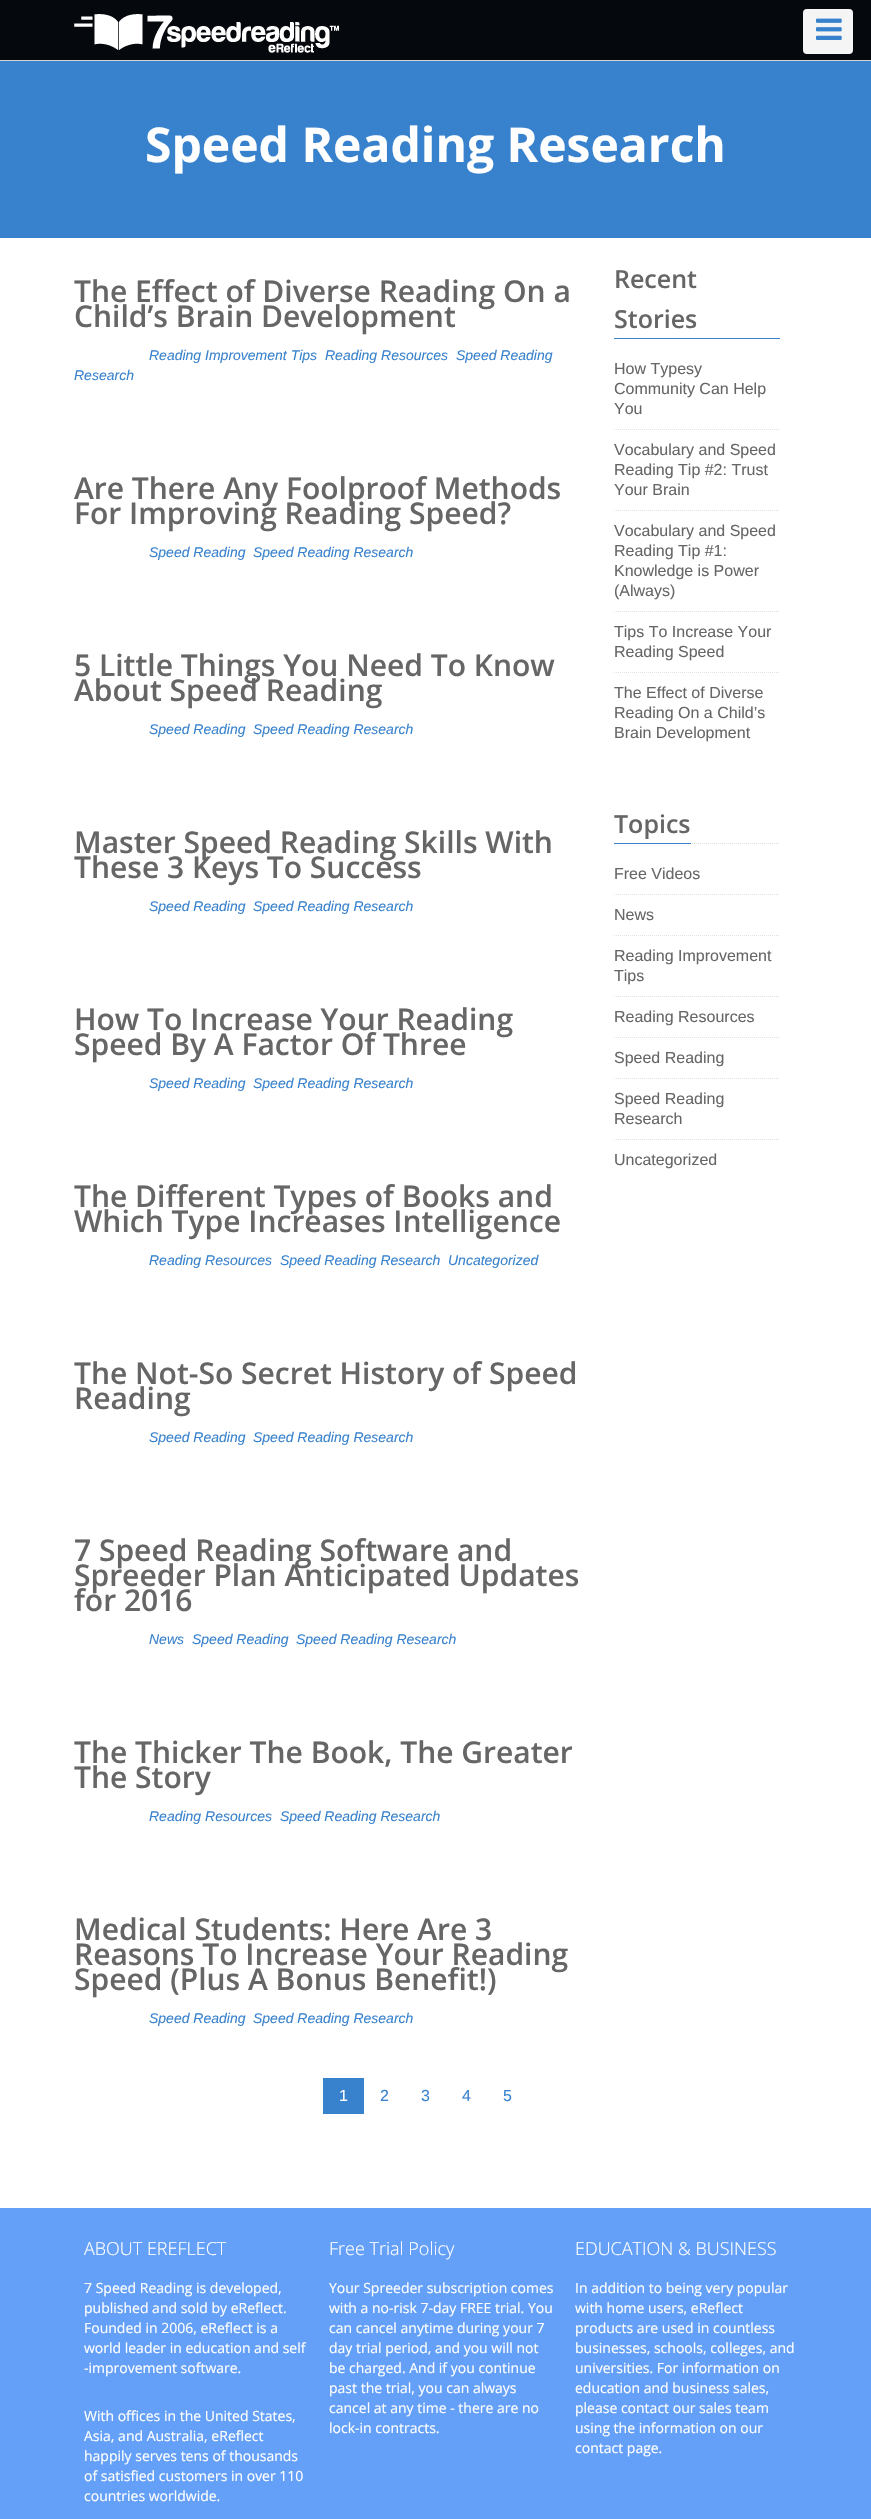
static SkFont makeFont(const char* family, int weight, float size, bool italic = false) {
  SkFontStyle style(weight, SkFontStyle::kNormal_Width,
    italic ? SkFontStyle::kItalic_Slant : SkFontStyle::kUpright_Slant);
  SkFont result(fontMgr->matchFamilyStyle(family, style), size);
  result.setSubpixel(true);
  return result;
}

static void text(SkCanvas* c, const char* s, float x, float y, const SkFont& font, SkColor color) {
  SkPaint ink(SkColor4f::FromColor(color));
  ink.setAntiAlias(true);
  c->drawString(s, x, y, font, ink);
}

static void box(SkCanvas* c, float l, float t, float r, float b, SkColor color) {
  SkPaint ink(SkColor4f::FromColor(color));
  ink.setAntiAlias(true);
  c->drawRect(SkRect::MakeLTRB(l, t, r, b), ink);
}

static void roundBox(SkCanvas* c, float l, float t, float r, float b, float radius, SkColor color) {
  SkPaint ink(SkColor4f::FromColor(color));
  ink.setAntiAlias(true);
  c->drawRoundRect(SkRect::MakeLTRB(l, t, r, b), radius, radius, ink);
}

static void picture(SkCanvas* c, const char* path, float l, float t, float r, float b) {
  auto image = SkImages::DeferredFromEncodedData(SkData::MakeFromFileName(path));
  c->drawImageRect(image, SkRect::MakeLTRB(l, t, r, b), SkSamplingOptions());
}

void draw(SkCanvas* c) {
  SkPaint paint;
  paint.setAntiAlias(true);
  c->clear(0xff65a0f8);
  box(c, 0, 0, 871, 60, 0xff05080c);
  box(c, 0, 60, 871, 61, 0xffd3d3d3);
  picture(c, "img_01.png", 74, 14, 339, 53);
  roundBox(c, 803, 9, 853, 54, 4, 0xfff5f5f5);
  paint.setColor(0x33ffffff);
  c->drawPath(SkPathBuilder().moveTo(807, 10).lineTo(849, 10).cubicTo(851, 10, 853, 12, 853, 14).cubicTo(853, 8, 847, 9, 842, 9).lineTo(814, 9).cubicTo(809, 9, 803, 8, 803, 14).cubicTo(803, 12, 805, 10, 807, 10).close().detach(), paint);
  picture(c, "img_02.png", 816, 18, 842, 40);
  box(c, 0, 61, 871, 238, 0xff3882cd);
  SkFont face1 = makeFont("Open Sans", 700, 48);
  text(c, "Speed Reading Research", 145, 162, face1, 0xffffffff);
  box(c, 0, 238, 871, 2208, 0xffffffff);
  SkFont face2 = makeFont("Open Sans", 600, 30);
  text(c, "The Effect of Diverse Reading On a", 74, 302, face2, 0xff666666);
  text(c, "Child’s Brain Development", 74, 327, face2, 0xff666666);
  SkFont face3 = makeFont("Liberation Sans", 400, 14, true);
  text(c, "Reading Improvement Tips", 149, 360, face3, 0xff3882cd);
  text(c, "Reading Resources", 325, 360, face3, 0xff3882cd);
  text(c, "Speed Reading", 456, 360, face3, 0xff3882cd);
  text(c, "Research", 74, 380, face3, 0xff3882cd);
  text(c, "Are There Any Foolproof Methods", 74, 499, face2, 0xff666666);
  text(c, "For Improving Reading Speed?", 74, 524, face2, 0xff666666);
  text(c, "Speed Reading", 149, 557, face3, 0xff3882cd);
  text(c, "Speed Reading Research", 253, 557, face3, 0xff3882cd);
  text(c, "5 Little Things You Need To Know", 74, 676, face2, 0xff666666);
  text(c, "About Speed Reading", 74, 701, face2, 0xff666666);
  text(c, "Speed Reading", 149, 734, face3, 0xff3882cd);
  text(c, "Speed Reading Research", 253, 734, face3, 0xff3882cd);
  text(c, "Master Speed Reading Skills With", 74, 853, face2, 0xff666666);
  text(c, "These 3 Keys To Success", 74, 878, face2, 0xff666666);
  text(c, "Speed Reading", 149, 911, face3, 0xff3882cd);
  text(c, "Speed Reading Research", 253, 911, face3, 0xff3882cd);
  text(c, "How To Increase Your Reading", 74, 1030, face2, 0xff666666);
  text(c, "Speed By A Factor Of Three", 74, 1055, face2, 0xff666666);
  text(c, "Speed Reading", 149, 1088, face3, 0xff3882cd);
  text(c, "Speed Reading Research", 253, 1088, face3, 0xff3882cd);
  text(c, "The Different Types of Books and", 74, 1207, face2, 0xff666666);
  text(c, "Which Type Increases Intelligence", 74, 1232, face2, 0xff666666);
  text(c, "Reading Resources", 149, 1265, face3, 0xff3882cd);
  text(c, "Speed Reading Research", 280, 1265, face3, 0xff3882cd);
  text(c, "Uncategorized", 448, 1265, face3, 0xff3882cd);
  text(c, "The Not-So Secret History of Speed", 74, 1384, face2, 0xff666666);
  text(c, "Reading", 74, 1409, face2, 0xff666666);
  text(c, "Speed Reading", 149, 1442, face3, 0xff3882cd);
  text(c, "Speed Reading Research", 253, 1442, face3, 0xff3882cd);
  text(c, "7 Speed Reading Software and", 74, 1561, face2, 0xff666666);
  text(c, "Spreeder Plan Anticipated Updates", 74, 1586, face2, 0xff666666);
  text(c, "for 2016", 74, 1611, face2, 0xff666666);
  text(c, "News", 149, 1644, face3, 0xff3882cd);
  text(c, "Speed Reading", 192, 1644, face3, 0xff3882cd);
  text(c, "Speed Reading Research", 296, 1644, face3, 0xff3882cd);
  text(c, "The Thicker The Book, The Greater", 74, 1763, face2, 0xff666666);
  text(c, "The Story", 74, 1788, face2, 0xff666666);
  text(c, "Reading Resources", 149, 1821, face3, 0xff3882cd);
  text(c, "Speed Reading Research", 280, 1821, face3, 0xff3882cd);
  text(c, "Medical Students: Here Are 3", 74, 1940, face2, 0xff666666);
  text(c, "Reasons To Increase Your Reading", 74, 1965, face2, 0xff666666);
  text(c, "Speed (Plus A Bonus Benefit!)", 74, 1990, face2, 0xff666666);
  text(c, "Speed Reading", 149, 2023, face3, 0xff3882cd);
  text(c, "Speed Reading Research", 253, 2023, face3, 0xff3882cd);
  box(c, 614, 338, 780, 339, 0xff3882cd);
  SkFont face4 = makeFont("Open Sans", 600, 25);
  text(c, "Recent", 614, 288, face4, 0xff666666);
  text(c, "Stories", 614, 328, face4, 0xff666666);
  paint.setStyle(SkPaint::kStroke_Style);
  paint.setStrokeWidth(1);
  paint.setColor(0xffe2e2e2);
  paint.setPathEffect(SkDashPathEffect::Make({{1, 1}}, 0));
  c->drawPath(SkPathBuilder().moveTo(614, 429.5f).lineTo(780, 429.5f).detach(), paint);
  paint.setPathEffect(nullptr);
  SkFont face5 = makeFont("Liberation Sans", 400, 16);
  text(c, "How Typesy", 614, 374, face5, 0xff666666);
  text(c, "Community Can Help", 614, 394, face5, 0xff666666);
  text(c, "You", 614, 414, face5, 0xff666666);
  paint.setPathEffect(SkDashPathEffect::Make({{1, 1}}, 0));
  c->drawPath(SkPathBuilder().moveTo(614, 510.5f).lineTo(780, 510.5f).detach(), paint);
  paint.setPathEffect(nullptr);
  text(c, "Vocabulary and Speed", 614, 455, face5, 0xff666666);
  text(c, "Reading Tip #2: Trust", 614, 475, face5, 0xff666666);
  text(c, "Your Brain", 614, 495, face5, 0xff666666);
  paint.setPathEffect(SkDashPathEffect::Make({{1, 1}}, 0));
  c->drawPath(SkPathBuilder().moveTo(614, 611.5f).lineTo(780, 611.5f).detach(), paint);
  paint.setPathEffect(nullptr);
  text(c, "Vocabulary and Speed", 614, 536, face5, 0xff666666);
  text(c, "Reading Tip #1:", 614, 556, face5, 0xff666666);
  text(c, "Knowledge is Power", 614, 576, face5, 0xff666666);
  text(c, "(Always)", 614, 596, face5, 0xff666666);
  paint.setPathEffect(SkDashPathEffect::Make({{1, 1}}, 0));
  c->drawPath(SkPathBuilder().moveTo(614, 672.5f).lineTo(780, 672.5f).detach(), paint);
  paint.setPathEffect(nullptr);
  text(c, "Tips To Increase Your", 614, 637, face5, 0xff666666);
  text(c, "Reading Speed", 614, 657, face5, 0xff666666);
  text(c, "The Effect of Diverse", 614, 698, face5, 0xff666666);
  text(c, "Reading On a Child’s", 614, 718, face5, 0xff666666);
  text(c, "Brain Development", 614, 738, face5, 0xff666666);
  paint.setColor(0xffdfdfdf);
  paint.setPathEffect(SkDashPathEffect::Make({{1, 1}}, 0));
  c->drawPath(SkPathBuilder().moveTo(614, 843.5f).lineTo(780, 843.5f).detach(), paint);
  paint.setPathEffect(nullptr);
  box(c, 614, 843, 691, 844, 0xff3882cd);
  text(c, "Topics", 614, 833, face4, 0xff666666);
  paint.setColor(0xffe2e2e2);
  paint.setPathEffect(SkDashPathEffect::Make({{1, 1}}, 0));
  c->drawPath(SkPathBuilder().moveTo(614, 894.5f).lineTo(780, 894.5f).detach(), paint);
  paint.setPathEffect(nullptr);
  text(c, "Free Videos", 614, 879, face5, 0xff666666);
  paint.setPathEffect(SkDashPathEffect::Make({{1, 1}}, 0));
  c->drawPath(SkPathBuilder().moveTo(614, 935.5f).lineTo(780, 935.5f).detach(), paint);
  paint.setPathEffect(nullptr);
  text(c, "News", 614, 920, face5, 0xff666666);
  paint.setPathEffect(SkDashPathEffect::Make({{1, 1}}, 0));
  c->drawPath(SkPathBuilder().moveTo(614, 996.5f).lineTo(780, 996.5f).detach(), paint);
  paint.setPathEffect(nullptr);
  text(c, "Reading Improvement", 614, 961, face5, 0xff666666);
  text(c, "Tips", 614, 981, face5, 0xff666666);
  paint.setPathEffect(SkDashPathEffect::Make({{1, 1}}, 0));
  c->drawPath(SkPathBuilder().moveTo(614, 1037.5f).lineTo(780, 1037.5f).detach(), paint);
  paint.setPathEffect(nullptr);
  text(c, "Reading Resources", 614, 1022, face5, 0xff666666);
  paint.setPathEffect(SkDashPathEffect::Make({{1, 1}}, 0));
  c->drawPath(SkPathBuilder().moveTo(614, 1078.5f).lineTo(780, 1078.5f).detach(), paint);
  paint.setPathEffect(nullptr);
  text(c, "Speed Reading", 614, 1063, face5, 0xff666666);
  paint.setPathEffect(SkDashPathEffect::Make({{1, 1}}, 0));
  c->drawPath(SkPathBuilder().moveTo(614, 1139.5f).lineTo(780, 1139.5f).detach(), paint);
  paint.setPathEffect(nullptr);
  text(c, "Speed Reading", 614, 1104, face5, 0xff666666);
  text(c, "Research", 614, 1124, face5, 0xff666666);
  text(c, "Uncategorized", 614, 1165, face5, 0xff666666);
  box(c, 323, 2078, 364, 2114, 0xff3882cd);
  text(c, "1", 339, 2101, face5, 0xffffffff);
  text(c, "2", 380, 2101, face5, 0xff3882cd);
  text(c, "3", 421, 2101, face5, 0xff3882cd);
  text(c, "4", 462, 2101, face5, 0xff3882cd);
  text(c, "5", 503, 2101, face5, 0xff3882cd);
  SkFont face6 = makeFont("Open Sans", 300, 18);
  text(c, "ABOUT EREFLECT", 84, 2255, face6, 0xffffffff);
  SkFont face7 = makeFont("Open Sans", 400, 14);
  text(c, "7 Speed Reading is developed,", 84, 2293, face7, 0xffffffff);
  text(c, "published and sold by eReflect.", 84, 2313, face7, 0xffffffff);
  text(c, "Founded in 2006, eReflect is a", 84, 2333, face7, 0xffffffff);
  text(c, "world leader in education and self", 84, 2353, face7, 0xffffffff);
  text(c, "-improvement software.", 84, 2373, face7, 0xffffffff);
  text(c, "With offices in the United States,", 84, 2421, face7, 0xffffffff);
  text(c, "Asia, and Australia, eReflect", 84, 2441, face7, 0xffffffff);
  text(c, "happily serves tens of thousands", 84, 2461, face7, 0xffffffff);
  text(c, "of satisfied customers in over 110", 84, 2481, face7, 0xffffffff);
  text(c, "countries worldwide.", 84, 2501, face7, 0xffffffff);
  text(c, "Free Trial Policy", 329, 2255, face6, 0xffffffff);
  text(c, "Your Spreeder subscription comes", 329, 2293, face7, 0xffffffff);
  text(c, "with a no-risk 7-day FREE trial. You", 329, 2313, face7, 0xffffffff);
  text(c, "can cancel anytime during your 7", 329, 2333, face7, 0xffffffff);
  text(c, "day trial period, and you will not", 329, 2353, face7, 0xffffffff);
  text(c, "be charged. And if you continue", 329, 2373, face7, 0xffffffff);
  text(c, "past the trial, you can always", 329, 2393, face7, 0xffffffff);
  text(c, "cancel at any time - there are no", 329, 2413, face7, 0xffffffff);
  text(c, "lock-in contracts.", 329, 2433, face7, 0xffffffff);
  text(c, "EDUCATION & BUSINESS", 575, 2255, face6, 0xffffffff);
  text(c, "In addition to being very popular", 575, 2293, face7, 0xffffffff);
  text(c, "with home users, eReflect", 575, 2313, face7, 0xffffffff);
  text(c, "products are used in countless", 575, 2333, face7, 0xffffffff);
  text(c, "businesses, schools, colleges, and", 575, 2353, face7, 0xffffffff);
  text(c, "universities. For information on", 575, 2373, face7, 0xffffffff);
  text(c, "education and business sales,", 575, 2393, face7, 0xffffffff);
  text(c, "please contact our sales team", 575, 2413, face7, 0xffffffff);
  text(c, "using the information on our", 575, 2433, face7, 0xffffffff);
  text(c, "contact page.", 575, 2453, face7, 0xffffffff);
}
